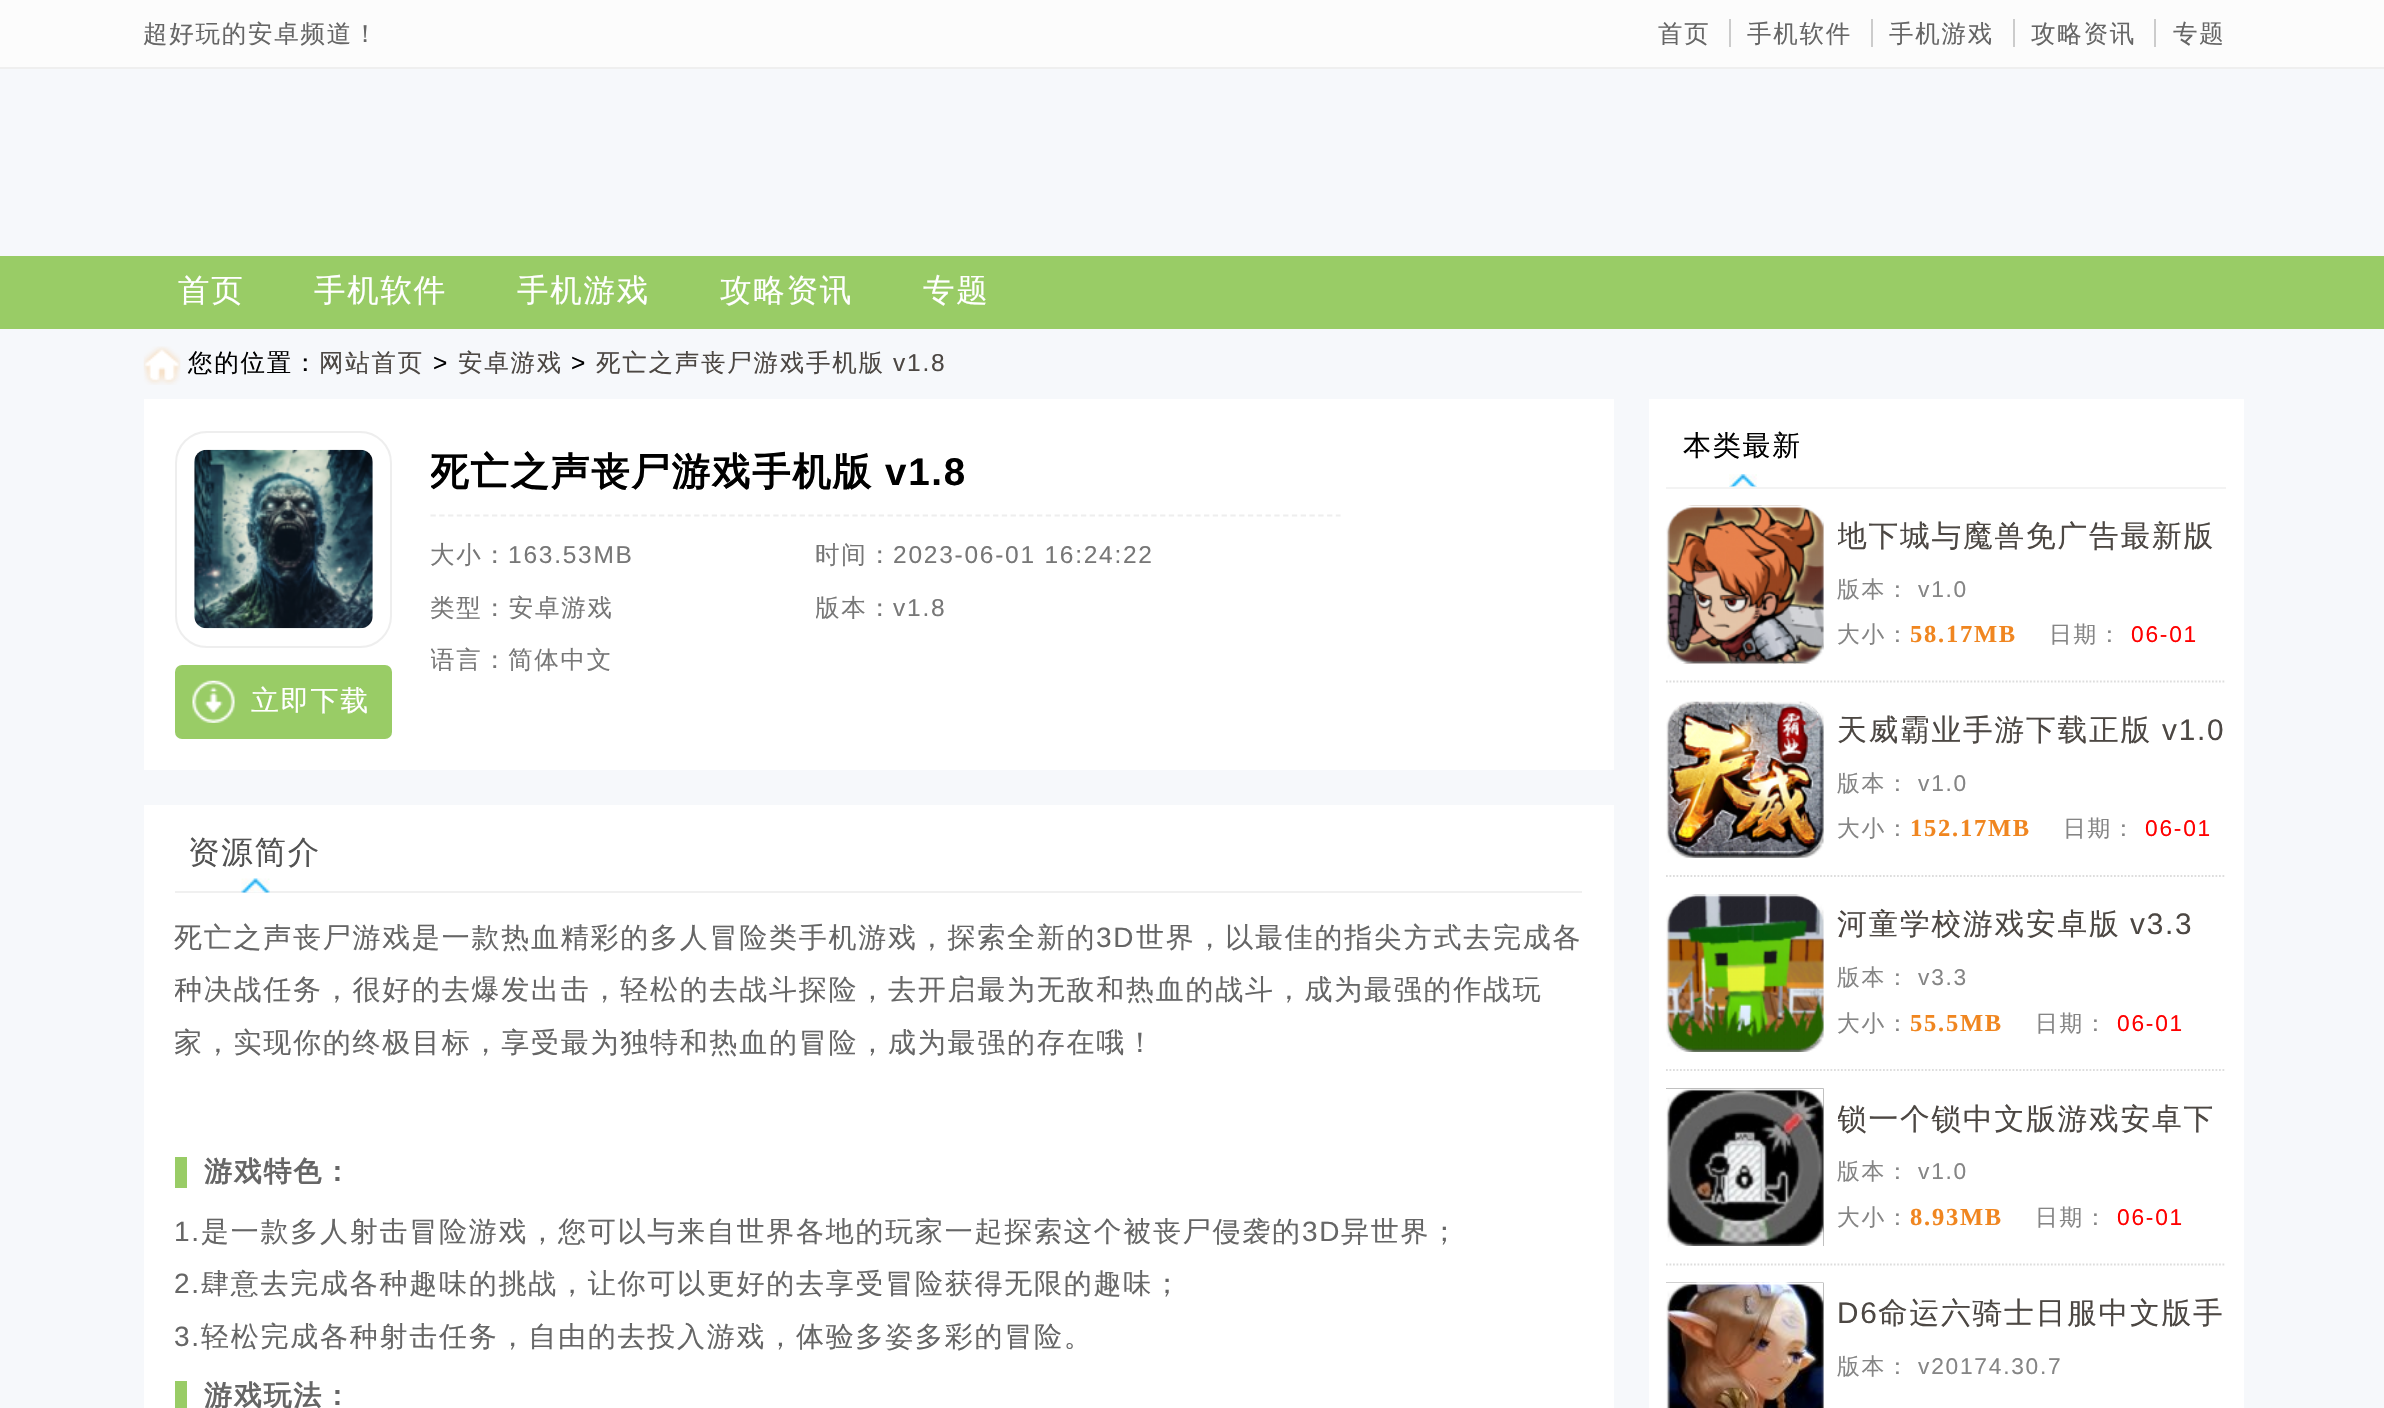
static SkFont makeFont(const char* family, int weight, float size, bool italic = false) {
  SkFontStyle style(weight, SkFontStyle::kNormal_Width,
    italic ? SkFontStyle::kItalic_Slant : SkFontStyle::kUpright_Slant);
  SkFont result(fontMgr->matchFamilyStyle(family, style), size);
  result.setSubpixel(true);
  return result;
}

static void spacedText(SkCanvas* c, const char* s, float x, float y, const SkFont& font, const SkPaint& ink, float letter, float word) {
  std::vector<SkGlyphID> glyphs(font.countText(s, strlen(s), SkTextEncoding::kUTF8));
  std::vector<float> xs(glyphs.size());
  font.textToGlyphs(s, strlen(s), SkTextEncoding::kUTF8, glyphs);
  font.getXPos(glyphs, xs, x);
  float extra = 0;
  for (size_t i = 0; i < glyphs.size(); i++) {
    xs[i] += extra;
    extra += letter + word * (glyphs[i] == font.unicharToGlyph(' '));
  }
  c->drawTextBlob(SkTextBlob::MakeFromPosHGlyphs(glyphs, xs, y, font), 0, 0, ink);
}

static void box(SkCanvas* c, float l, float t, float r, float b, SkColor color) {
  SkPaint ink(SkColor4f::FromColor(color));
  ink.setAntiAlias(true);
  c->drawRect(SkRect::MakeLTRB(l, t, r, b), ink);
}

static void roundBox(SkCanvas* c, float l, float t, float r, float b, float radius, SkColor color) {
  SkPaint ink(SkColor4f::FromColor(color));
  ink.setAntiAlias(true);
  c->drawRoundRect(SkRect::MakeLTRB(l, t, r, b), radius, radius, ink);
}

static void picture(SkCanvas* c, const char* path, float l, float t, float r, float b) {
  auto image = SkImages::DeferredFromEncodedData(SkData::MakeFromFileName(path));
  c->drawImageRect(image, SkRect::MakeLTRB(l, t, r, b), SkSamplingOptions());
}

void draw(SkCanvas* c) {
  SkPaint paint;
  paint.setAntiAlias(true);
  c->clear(0xfff6f8fb);
  box(c, 0, 0, 2384, 67, 0xfffcfcfc);
  box(c, 0, 67, 2384, 69, 0xffefefef);
  SkFont face1 = makeFont("WenQuanYi Zen Hei", 500, 24.5f);
  paint.setColor(0xff666666);
  spacedText(c, "超好玩的安卓频道！", 143, 42, face1, paint, 1.75f, 0);
  spacedText(c, "首页", 1658, 42, face1, paint, 1.75f, 0);
  box(c, 1729, 19, 1731, 47, 0xffcccccc);
  spacedText(c, "手机软件", 1747, 42, face1, paint, 1.75f, 0);
  box(c, 1871, 19, 1873, 47, 0xffcccccc);
  spacedText(c, "手机游戏", 1889, 42, face1, paint, 1.75f, 0);
  box(c, 2013, 19, 2015, 47, 0xffcccccc);
  spacedText(c, "攻略资讯", 2031, 42, face1, paint, 1.75f, 0);
  box(c, 2154, 19, 2156, 47, 0xffcccccc);
  spacedText(c, "专题", 2173, 42, face1, paint, 1.75f, 0);
  box(c, 0, 256, 2384, 329, 0xff99cc66);
  SkFont face2 = makeFont("WenQuanYi Zen Hei", 500, 31.5f);
  paint.setColor(0xffffffff);
  spacedText(c, "首页", 178, 301, face2, paint, 1.75f, 0);
  spacedText(c, "手机软件", 314, 301, face2, paint, 1.75f, 0);
  spacedText(c, "手机游戏", 517, 301, face2, paint, 1.75f, 0);
  spacedText(c, "攻略资讯", 720, 301, face2, paint, 1.75f, 0);
  spacedText(c, "专题", 923, 301, face2, paint, 1.75f, 0);
  picture(c, "img_01.png", 143, 346, 181, 385);
  paint.setColor(0xff000000);
  spacedText(c, "您的位置：", 188, 371, face1, paint, 1.75f, 0);
  paint.setColor(0xff4c4743);
  spacedText(c, "网站首页", 319, 371, face1, paint, 1.75f, 0);
  SkFont face3 = makeFont("Liberation Sans", 400, 24.5f);
  paint.setColor(0xff000000);
  spacedText(c, ">", 433, 371, face3, paint, 1.75f, 0);
  paint.setColor(0xff4c4743);
  spacedText(c, "安卓游戏", 458, 371, face1, paint, 1.75f, 0);
  paint.setColor(0xff000000);
  spacedText(c, ">", 571, 371, face3, paint, 1.75f, 0);
  paint.setColor(0xff4c4743);
  spacedText(c, "死亡之声丧尸游戏手机版", 596, 371, face1, paint, 1.75f, 0);
  spacedText(c, "v1.8", 893, 371, face3, paint, 1.75f, 0);
  box(c, 144, 399, 1614, 770, 0xffffffff);
  paint.setStyle(SkPaint::kStroke_Style);
  paint.setStrokeWidth(1.8f);
  paint.setColor(0xffeeeeee);
  paint.setPathEffect(SkDashPathEffect::Make({{5.25f, 3.54f}}, 0));
  c->drawPath(SkPathBuilder().moveTo(430.5f, 515.5f).lineTo(1340.5f, 515.5f).detach(), paint);
  paint.setPathEffect(nullptr);
  c->save();
  c->clipRect(SkRect::MakeLTRB(431, 431, 1341, 515));
  SkFont face4 = makeFont("WenQuanYi Zen Hei", 700, 38.5f);
  paint.setStyle(SkPaint::kFill_Style);
  paint.setColor(0xff000000);
  spacedText(c, "死亡之声丧尸游戏手机版", 430, 485, face4, paint, 1.75f, 0);
  c->restore();
  SkFont face5 = makeFont("Liberation Sans", 700, 38.5f);
  spacedText(c, "v1.8", 885, 485, face5, paint, 1.75f, 0);
  paint.setColor(0xff777777);
  spacedText(c, "大小：", 430, 563, face1, paint, 1.75f, 0);
  spacedText(c, "163.53MB", 508, 563, face3, paint, 1.75f, 0);
  spacedText(c, "时间：", 815, 563, face1, paint, 1.75f, 0);
  spacedText(c, "2023-06-01 16:24:22", 893, 563, face3, paint, 1.75f, 0);
  spacedText(c, "类型：安卓游戏", 430, 616, face1, paint, 1.75f, 0);
  c->save();
  c->clipRect(SkRect::MakeLTRB(816, 581, 1323, 634));
  spacedText(c, "版本：", 815, 616, face1, paint, 1.75f, 0);
  c->restore();
  spacedText(c, "v1.8", 893, 616, face3, paint, 1.75f, 0);
  c->save();
  c->clipRect(SkRect::MakeLTRB(431, 634, 816, 686));
  spacedText(c, "语言：", 430, 668, face1, paint, 1.75f, 0);
  c->restore();
  spacedText(c, "简体中文", 508, 668, face1, paint, 1.75f, 0);
  paint.setStyle(SkPaint::kStroke_Style);
  paint.setStrokeWidth(2);
  paint.setColor(0xffeeeeee);
  c->drawRoundRect(SkRect::MakeLTRB(176, 432, 391, 647), 31, 31, paint);
  picture(c, "img_02.png", 194, 449, 373, 629);
  roundBox(c, 175, 665, 392, 739, 7, 0xff99cc66);
  picture(c, "img_03.png", 192, 680, 235, 723);
  SkFont face6 = makeFont("WenQuanYi Zen Hei", 500, 28);
  paint.setStyle(SkPaint::kFill_Style);
  paint.setColor(0xffffffff);
  spacedText(c, "立即下载", 251, 710, face6, paint, 1.75f, 0);
  box(c, 144, 805, 1614, 1408, 0xffffffff);
  box(c, 175, 891, 1582, 893, 0xfff0f0f0);
  picture(c, "img_04.png", 241, 878, 270, 893);
  paint.setColor(0xff525252);
  spacedText(c, "资源简介", 188, 863, face2, paint, 1.75f, 0);
  paint.setColor(0xff666666);
  spacedText(c, "死亡之声丧尸游戏是一款热血精彩的多人冒险类手机游戏，探索全新的", 174, 947, face6, paint, 1.75f, 0);
  SkFont face7 = makeFont("Liberation Sans", 400, 28);
  spacedText(c, "3D", 1096, 947, face7, paint, 1.75f, 0);
  spacedText(c, "世界，以最佳的指尖方式去完成各", 1136, 947, face6, paint, 1.75f, 0);
  c->save();
  c->clipRect(SkRect::MakeLTRB(175, 912, 1593, 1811));
  spacedText(c, "种决战任务，很好的去爆发出击，轻松的去战斗探险，去开启最为无敌和热血的战斗，成为最强的作战玩", 174, 999, face6, paint, 1.75f, 0);
  c->restore();
  spacedText(c, "家，实现你的终极目标，享受最为独特和热血的冒险，成为最强的存在哦！", 174, 1052, face6, paint, 1.75f, 0);
  box(c, 175, 1157, 187, 1188, 0xff99cc66);
  SkFont face8 = makeFont("WenQuanYi Zen Hei", 700, 28);
  spacedText(c, "游戏特色：", 204, 1181, face8, paint, 1.75f, 0);
  spacedText(c, "1.", 174, 1241, face7, paint, 1.75f, 0);
  spacedText(c, "是一款多人射击冒险游戏，您可以与来自世界各地的玩家一起探索这个被丧尸侵袭的", 201, 1241, face6, paint, 1.75f, 0);
  spacedText(c, "3D", 1302, 1241, face7, paint, 1.75f, 0);
  spacedText(c, "异世界；", 1341, 1241, face6, paint, 1.75f, 0);
  spacedText(c, "2.", 174, 1293, face7, paint, 1.75f, 0);
  spacedText(c, "肆意去完成各种趣味的挑战，让你可以更好的去享受冒险获得无限的趣味；", 201, 1293, face6, paint, 1.75f, 0);
  spacedText(c, "3.", 174, 1346, face7, paint, 1.75f, 0);
  spacedText(c, "轻松完成各种射击任务，自由的去投入游戏，体验多姿多彩的冒险。", 201, 1346, face6, paint, 1.75f, 0);
  box(c, 175, 1381, 187, 1408, 0xff99cc66);
  spacedText(c, "游戏玩法：", 204, 1405, face8, paint, 1.75f, 0);
  box(c, 1649, 399, 2244, 1408, 0xffffffff);
  box(c, 1666, 487, 2226, 489, 0xfff3f3f3);
  picture(c, "img_05.png", 1729, 474, 1757, 487);
  paint.setColor(0xff000000);
  spacedText(c, "本类最新", 1683, 455, face6, paint, 1.75f, 0);
  paint.setStyle(SkPaint::kStroke_Style);
  paint.setStrokeWidth(1.8f);
  paint.setColor(0xffdddddd);
  paint.setPathEffect(SkDashPathEffect::Make({{1.75f, 1.75f}}, 0));
  c->drawPath(SkPathBuilder().moveTo(1666, 681.5f).lineTo(2226, 681.5f).detach(), paint);
  paint.setPathEffect(nullptr);
  picture(c, "img_07.png", 1667, 505, 1824, 664);
  picture(c, "img_06.png", 1666, 505, 1824, 664);
  c->save();
  c->clipRect(SkRect::MakeLTRB(1838, 506, 2226, 567));
  SkFont face9 = makeFont("WenQuanYi Zen Hei", 500, 29.75f);
  paint.setStyle(SkPaint::kFill_Style);
  paint.setColor(0xff4c4743);
  spacedText(c, "地下城与魔兽免广告最新版", 1837, 546, face9, paint, 1.75f, 0);
  c->restore();
  SkFont face10 = makeFont("WenQuanYi Zen Hei", 500, 22.75f);
  paint.setColor(0xff858585);
  spacedText(c, "版本：", 1837, 597, face10, paint, 1.75f, 0);
  SkFont face11 = makeFont("Liberation Sans", 400, 22.75f);
  spacedText(c, "v1.0", 1918, 597, face11, paint, 1.75f, 0);
  spacedText(c, "大小：", 1837, 642, face10, paint, 1.75f, 0);
  SkFont face12 = makeFont("Liberation Serif", 700, 24.5f);
  paint.setColor(0xfff08620);
  spacedText(c, "58.17MB", 1910, 642, face12, paint, 1.75f, 0);
  paint.setColor(0xff858585);
  spacedText(c, "日期：", 2049, 642, face10, paint, 1.75f, 0);
  paint.setColor(0xffff0000);
  spacedText(c, "06-01", 2131, 642, face11, paint, 1.75f, 0);
  paint.setStyle(SkPaint::kStroke_Style);
  paint.setColor(0xffdddddd);
  paint.setPathEffect(SkDashPathEffect::Make({{1.75f, 1.75f}}, 0));
  c->drawPath(SkPathBuilder().moveTo(1666, 876).lineTo(2226, 876).detach(), paint);
  paint.setPathEffect(nullptr);
  picture(c, "img_09.png", 1667, 700, 1824, 858);
  picture(c, "img_08.png", 1666, 700, 1824, 858);
  paint.setStyle(SkPaint::kFill_Style);
  paint.setColor(0xff4c4743);
  spacedText(c, "天威霸业手游下载正版", 1837, 740, face9, paint, 1.75f, 0);
  SkFont face13 = makeFont("Liberation Sans", 400, 29.75f);
  spacedText(c, "v1.0", 2162, 740, face13, paint, 1.75f, 0);
  paint.setColor(0xff858585);
  spacedText(c, "版本：", 1837, 791, face10, paint, 1.75f, 0);
  spacedText(c, "v1.0", 1918, 791, face11, paint, 1.75f, 0);
  spacedText(c, "大小：", 1837, 836, face10, paint, 1.75f, 0);
  paint.setColor(0xfff08620);
  spacedText(c, "152.17MB", 1910, 836, face12, paint, 1.75f, 0);
  paint.setColor(0xff858585);
  spacedText(c, "日期：", 2063, 836, face10, paint, 1.75f, 0);
  paint.setColor(0xffff0000);
  spacedText(c, "06-01", 2145, 836, face11, paint, 1.75f, 0);
  paint.setStyle(SkPaint::kStroke_Style);
  paint.setColor(0xffdddddd);
  paint.setPathEffect(SkDashPathEffect::Make({{1.75f, 1.75f}}, 0));
  c->drawPath(SkPathBuilder().moveTo(1666, 1070).lineTo(2226, 1070).detach(), paint);
  paint.setPathEffect(nullptr);
  picture(c, "img_11.png", 1667, 894, 1824, 1052);
  picture(c, "img_10.png", 1666, 894, 1824, 1052);
  paint.setStyle(SkPaint::kFill_Style);
  paint.setColor(0xff4c4743);
  spacedText(c, "河童学校游戏安卓版", 1837, 934, face9, paint, 1.75f, 0);
  spacedText(c, "v3.3", 2130, 934, face13, paint, 1.75f, 0);
  paint.setColor(0xff858585);
  spacedText(c, "版本：", 1837, 985, face10, paint, 1.75f, 0);
  spacedText(c, "v3.3", 1918, 985, face11, paint, 1.75f, 0);
  spacedText(c, "大小：", 1837, 1031, face10, paint, 1.75f, 0);
  paint.setColor(0xfff08620);
  spacedText(c, "55.5MB", 1910, 1031, face12, paint, 1.75f, 0);
  paint.setColor(0xff858585);
  spacedText(c, "日期：", 2035, 1031, face10, paint, 1.75f, 0);
  paint.setColor(0xffff0000);
  spacedText(c, "06-01", 2117, 1031, face11, paint, 1.75f, 0);
  paint.setStyle(SkPaint::kStroke_Style);
  paint.setColor(0xffdddddd);
  paint.setPathEffect(SkDashPathEffect::Make({{1.75f, 1.75f}}, 0));
  c->drawPath(SkPathBuilder().moveTo(1666, 1264.5f).lineTo(2226, 1264.5f).detach(), paint);
  paint.setPathEffect(nullptr);
  picture(c, "img_12.png", 1666, 1088, 1824, 1246);
  picture(c, "img_13.png", 1666, 1088, 1824, 1246);
  c->save();
  c->clipRect(SkRect::MakeLTRB(1838, 1089, 2226, 1150));
  paint.setStyle(SkPaint::kFill_Style);
  paint.setColor(0xff4c4743);
  spacedText(c, "锁一个锁中文版游戏安卓下", 1837, 1129, face9, paint, 1.75f, 0);
  c->restore();
  paint.setColor(0xff858585);
  spacedText(c, "版本：", 1837, 1179, face10, paint, 1.75f, 0);
  spacedText(c, "v1.0", 1918, 1179, face11, paint, 1.75f, 0);
  spacedText(c, "大小：", 1837, 1225, face10, paint, 1.75f, 0);
  paint.setColor(0xfff08620);
  spacedText(c, "8.93MB", 1910, 1225, face12, paint, 1.75f, 0);
  paint.setColor(0xff858585);
  spacedText(c, "日期：", 2035, 1225, face10, paint, 1.75f, 0);
  paint.setColor(0xffff0000);
  spacedText(c, "06-01", 2117, 1225, face11, paint, 1.75f, 0);
  picture(c, "img_14.png", 1666, 1282, 1824, 1408);
  picture(c, "img_15.png", 1666, 1282, 1824, 1408);
  paint.setColor(0xff4c4743);
  spacedText(c, "D6", 1837, 1323, face13, paint, 1.75f, 0);
  spacedText(c, "命运六骑士日服中文版手", 1878, 1323, face9, paint, 1.75f, 0);
  paint.setColor(0xff858585);
  spacedText(c, "版本：", 1837, 1374, face10, paint, 1.75f, 0);
  spacedText(c, "v20174.30.7", 1918, 1374, face11, paint, 1.75f, 0);
}
